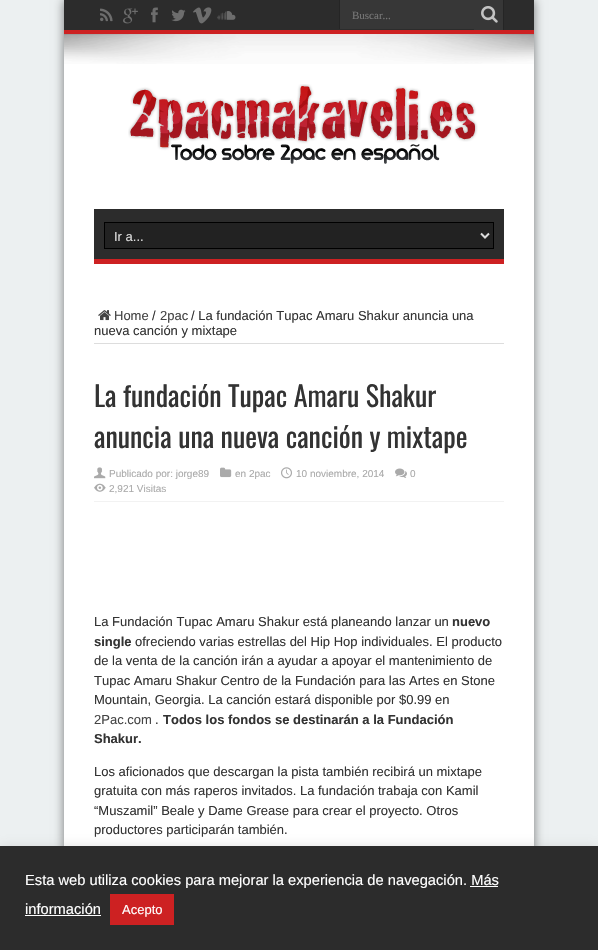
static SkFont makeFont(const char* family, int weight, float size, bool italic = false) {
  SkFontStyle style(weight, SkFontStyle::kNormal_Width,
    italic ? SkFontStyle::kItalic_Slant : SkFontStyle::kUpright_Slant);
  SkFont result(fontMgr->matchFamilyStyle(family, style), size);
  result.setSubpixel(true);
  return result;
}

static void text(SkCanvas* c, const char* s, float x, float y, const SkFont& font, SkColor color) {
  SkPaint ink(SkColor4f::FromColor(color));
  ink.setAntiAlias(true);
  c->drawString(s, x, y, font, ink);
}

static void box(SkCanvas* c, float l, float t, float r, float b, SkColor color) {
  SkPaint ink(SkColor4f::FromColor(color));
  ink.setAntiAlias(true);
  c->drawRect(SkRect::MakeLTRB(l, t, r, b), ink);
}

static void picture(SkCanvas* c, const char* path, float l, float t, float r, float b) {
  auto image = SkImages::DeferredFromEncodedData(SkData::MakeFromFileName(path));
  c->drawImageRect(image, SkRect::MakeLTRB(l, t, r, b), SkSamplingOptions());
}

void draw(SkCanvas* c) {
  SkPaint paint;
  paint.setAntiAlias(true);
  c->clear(0xffecf0f1);
  paint.setColor(0x80000000);
  paint.setMaskFilter(SkMaskFilter::MakeBlur(kNormal_SkBlurStyle, 5));
  c->drawRect(SkRect::MakeLTRB(64, 0, 534, 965), paint);
  paint.setMaskFilter(nullptr);
  box(c, 64, 34, 534, 846, 0xffffffff);
  box(c, 64, 0, 534, 30, 0xff2c2c2c);
  box(c, 64, 30, 534, 34, 0xffcd2122);
  picture(c, "img_01.png", 100, 8, 113, 22);
  picture(c, "img_02.png", 123, 8, 138, 24);
  picture(c, "img_03.png", 151, 7, 158, 23);
  picture(c, "img_04.png", 171, 9, 186, 22);
  picture(c, "img_05.png", 193, 7, 212, 24);
  picture(c, "img_06.png", 217, 11, 236, 20);
  box(c, 340, 0, 474, 29, 0xff373737);
  box(c, 339, 0, 340, 29, 0xff252525);
  SkFont face1 = makeFont("Liberation Serif", 400, 11);
  text(c, "Buscar...", 352, 19, face1, 0xff787878);
  box(c, 474, 0, 503, 30, 0xff373737);
  box(c, 503, 0, 504, 30, 0xff252525);
  picture(c, "img_07.png", 481, 6, 498, 23);
  picture(c, "img_08.png", 64, 34, 534, 64);
  picture(c, "img_09.png", 128, 84, 478, 164);
  box(c, 94, 209, 504, 259, 0xff2c2c2c);
  box(c, 94, 259, 504, 264, 0xffcd2122);
  paint.setColor(0xff222222);
  c->drawRect(SkRect::MakeLTRB(104.5f, 222.5f, 493.5f, 248.5f), paint);
  paint.setStyle(SkPaint::kStroke_Style);
  paint.setStrokeWidth(1);
  paint.setColor(0xff000000);
  c->drawRect(SkRect::MakeLTRB(104.5f, 222.5f, 493.5f, 248.5f), paint);
  paint.setStrokeWidth(2);
  paint.setColor(0xffdddddd);
  c->drawPath(SkPathBuilder().moveTo(481, 233.5f).lineTo(485, 237.5f).lineTo(489, 233.5f).detach(), paint);
  SkFont face2 = makeFont("Liberation Sans", 400, 13);
  text(c, "Ir a...", 114, 241, face2, 0xffdddddd);
  box(c, 94, 343, 504, 344, 0xffdddddd);
  picture(c, "img_10.png", 98, 310, 111, 321);
  text(c, "Home", 114, 320, face2, 0xff444444);
  text(c, "/", 152, 320, face2, 0xff333333);
  text(c, "2pac", 160, 320, face2, 0xff444444);
  text(c, "/ La fundación Tupac Amaru Shakur anuncia una", 191, 320, face2, 0xff333333);
  text(c, "nueva canción y mixtape", 94, 335, face2, 0xff333333);
  SkFont face3 = makeFont("Oswald", 400, 28);
  text(c, "La fundación Tupac Amaru Shakur", 94, 407, face3, 0xff333333);
  text(c, "anuncia una nueva canción y mixtape", 94, 448, face3, 0xff333333);
  box(c, 94, 501, 504, 502, 0xfff2f2f2);
  picture(c, "img_11.png", 94, 467, 106, 479);
  SkFont face4 = makeFont("Liberation Sans", 400, 10);
  text(c, "Publicado por: jorge89", 109, 477, face4, 0xffaaaaaa);
  picture(c, "img_12.png", 220, 467, 232, 478);
  text(c, "en 2pac", 235, 477, face4, 0xffaaaaaa);
  picture(c, "img_13.png", 281, 467, 292, 479);
  text(c, "10 noviembre, 2014", 296, 477, face4, 0xffaaaaaa);
  picture(c, "img_14.png", 395, 468, 407, 478);
  text(c, "0", 410, 477, face4, 0xffaaaaaa);
  picture(c, "img_15.png", 94, 483, 106, 492);
  text(c, "2,921 Visitas", 109, 492, face4, 0xffaaaaaa);
  text(c, "La Fundación Tupac Amaru Shakur está planeando lanzar un", 94, 626, face2, 0xff333333);
  SkFont face5 = makeFont("Liberation Sans", 700, 13);
  text(c, "nuevo", 452, 626, face5, 0xff333333);
  text(c, "single", 94, 646, face5, 0xff333333);
  text(c, "ofreciendo varias estrellas del Hip Hop individuales. El producto", 135, 646, face2, 0xff333333);
  text(c, "de la venta de la canción irán a ayudar a apoyar el mantenimiento de", 94, 665, face2, 0xff333333);
  text(c, "Tupac Amaru Shakur Centro de la Fundación para las Artes en Stone", 94, 685, face2, 0xff333333);
  text(c, "Mountain, Georgia. La canción estará disponible por $0.99 en", 94, 704, face2, 0xff333333);
  text(c, "2Pac.com", 94, 724, face2, 0xff444444);
  text(c, ".", 155, 724, face2, 0xff333333);
  text(c, "Todos los fondos se destinarán a la Fundación", 163, 724, face5, 0xff333333);
  text(c, "Shakur.", 94, 743, face5, 0xff333333);
  text(c, "Los aficionados que descargan la pista también recibirá un mixtape", 94, 776, face2, 0xff333333);
  text(c, "gratuita con más raperos invitados. La fundación trabaja con Kamil", 94, 795, face2, 0xff333333);
  text(c, "“Muszamil” Beale y Dame Grease para crear el proyecto. Otros", 94, 815, face2, 0xff333333);
  text(c, "productores participarán también.", 94, 834, face2, 0xff333333);
  paint.setStyle(SkPaint::kFill_Style);
  paint.setColor(0x4dacabab);
  paint.setMaskFilter(SkMaskFilter::MakeBlur(kNormal_SkBlurStyle, 5));
  c->drawRect(SkRect::MakeLTRB(0, 845, 598, 949), paint);
  paint.setMaskFilter(nullptr);
  box(c, 0, 846, 598, 950, 0xff2c2c2c);
  SkFont face6 = makeFont("Liberation Sans", 400, 14.7f);
  text(c, "Esta web utiliza cookies para mejorar la experiencia de navegación. Más", 25, 885, face6, 0xffffffff);
  text(c, "información", 25, 914, face6, 0xffffffff);
  box(c, 470, 886, 498, 887, 0xffffffff);
  box(c, 25, 915, 101, 916, 0xffffffff);
  box(c, 110, 894, 174, 925, 0xffcd2122);
  text(c, "Acepto", 122, 914, face2, 0xffffffff);
}
